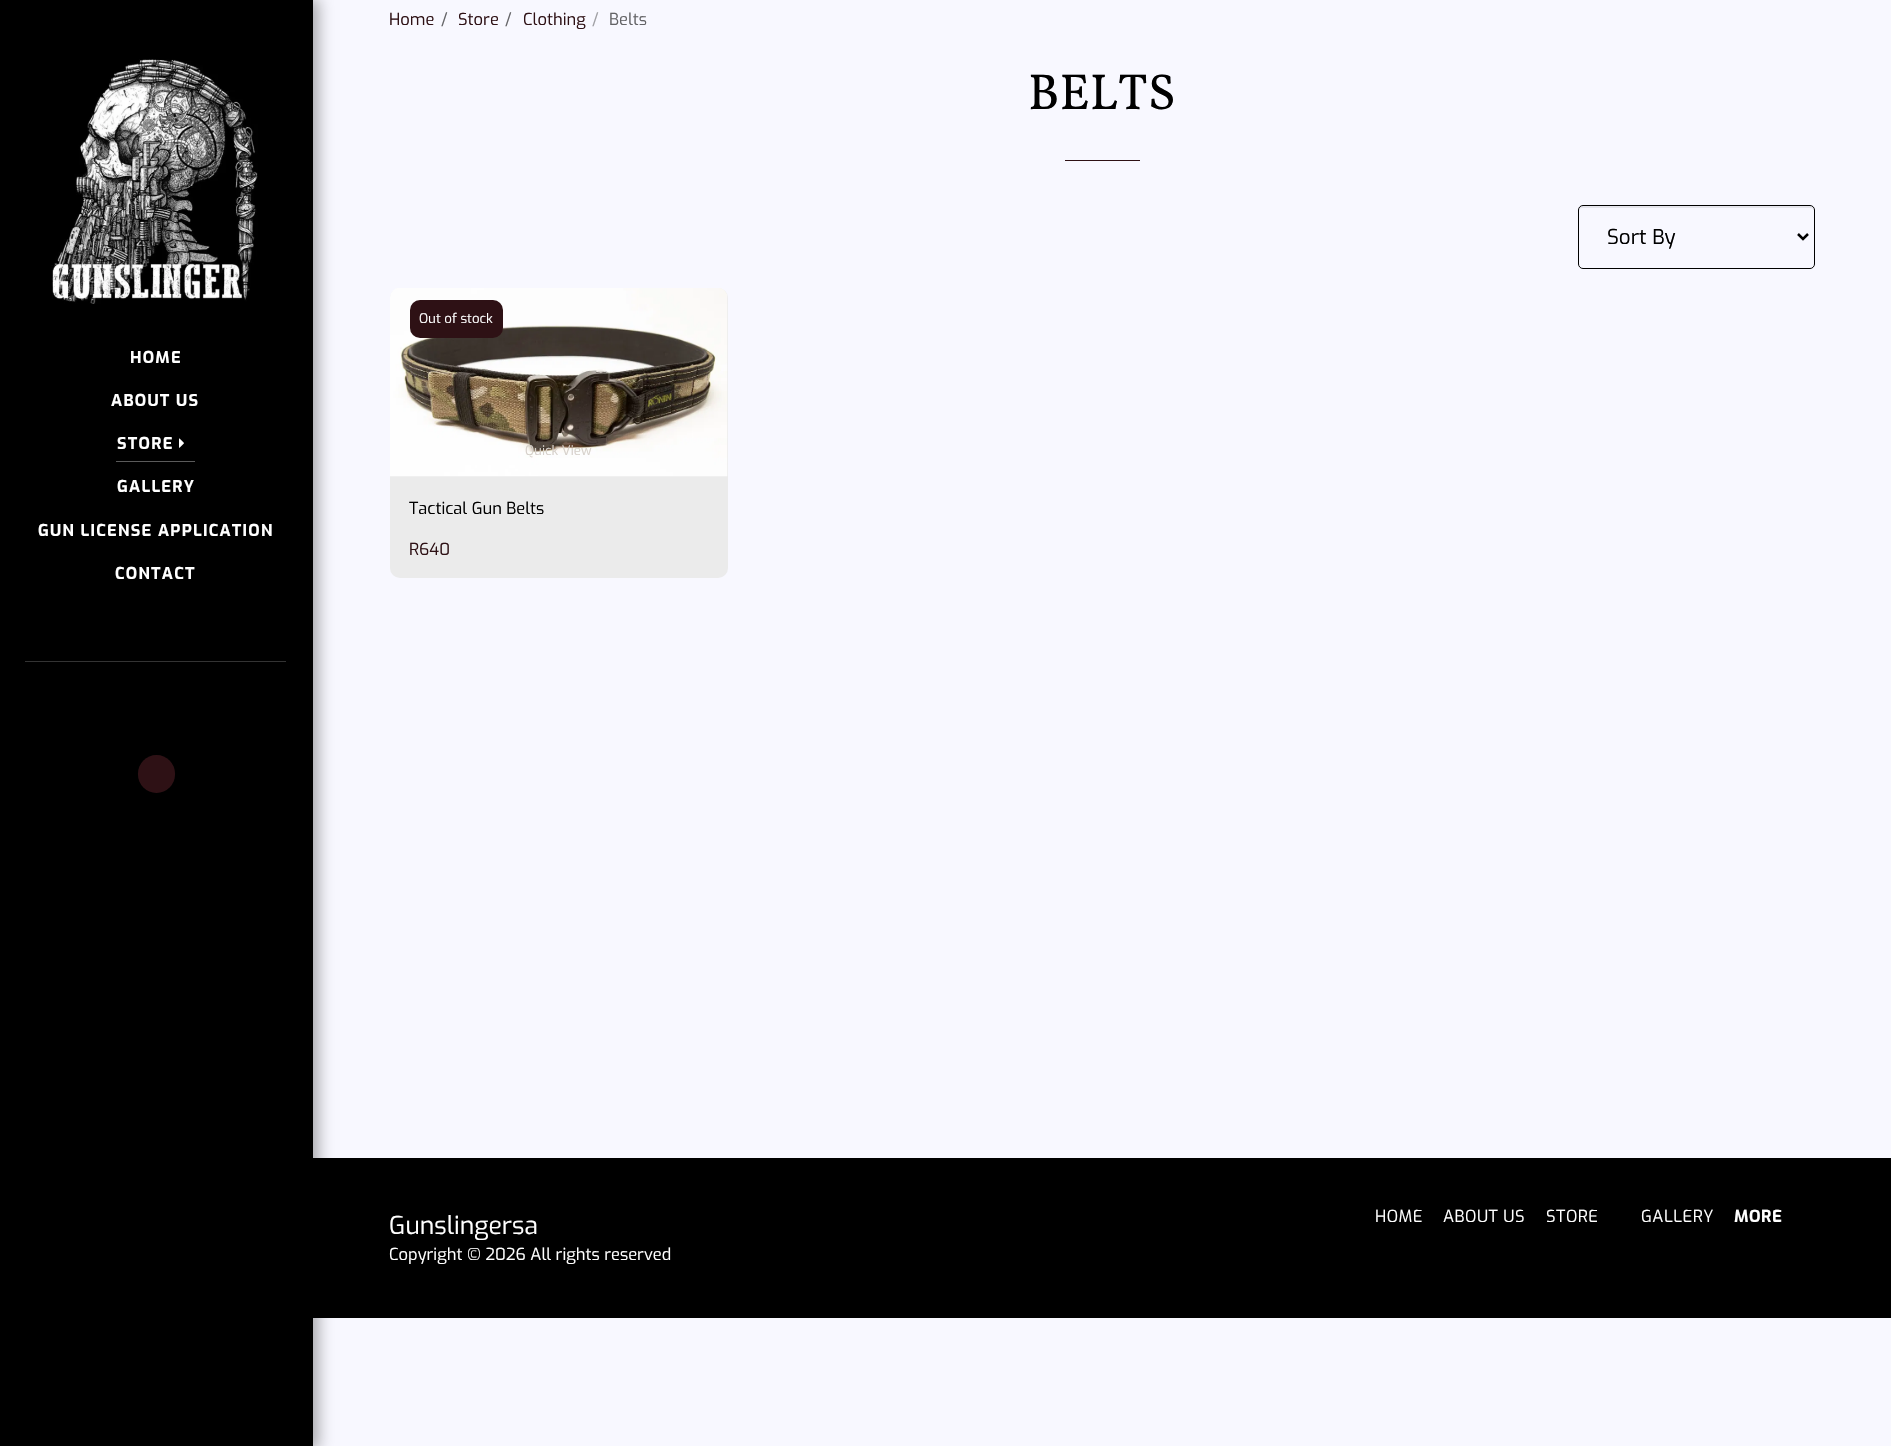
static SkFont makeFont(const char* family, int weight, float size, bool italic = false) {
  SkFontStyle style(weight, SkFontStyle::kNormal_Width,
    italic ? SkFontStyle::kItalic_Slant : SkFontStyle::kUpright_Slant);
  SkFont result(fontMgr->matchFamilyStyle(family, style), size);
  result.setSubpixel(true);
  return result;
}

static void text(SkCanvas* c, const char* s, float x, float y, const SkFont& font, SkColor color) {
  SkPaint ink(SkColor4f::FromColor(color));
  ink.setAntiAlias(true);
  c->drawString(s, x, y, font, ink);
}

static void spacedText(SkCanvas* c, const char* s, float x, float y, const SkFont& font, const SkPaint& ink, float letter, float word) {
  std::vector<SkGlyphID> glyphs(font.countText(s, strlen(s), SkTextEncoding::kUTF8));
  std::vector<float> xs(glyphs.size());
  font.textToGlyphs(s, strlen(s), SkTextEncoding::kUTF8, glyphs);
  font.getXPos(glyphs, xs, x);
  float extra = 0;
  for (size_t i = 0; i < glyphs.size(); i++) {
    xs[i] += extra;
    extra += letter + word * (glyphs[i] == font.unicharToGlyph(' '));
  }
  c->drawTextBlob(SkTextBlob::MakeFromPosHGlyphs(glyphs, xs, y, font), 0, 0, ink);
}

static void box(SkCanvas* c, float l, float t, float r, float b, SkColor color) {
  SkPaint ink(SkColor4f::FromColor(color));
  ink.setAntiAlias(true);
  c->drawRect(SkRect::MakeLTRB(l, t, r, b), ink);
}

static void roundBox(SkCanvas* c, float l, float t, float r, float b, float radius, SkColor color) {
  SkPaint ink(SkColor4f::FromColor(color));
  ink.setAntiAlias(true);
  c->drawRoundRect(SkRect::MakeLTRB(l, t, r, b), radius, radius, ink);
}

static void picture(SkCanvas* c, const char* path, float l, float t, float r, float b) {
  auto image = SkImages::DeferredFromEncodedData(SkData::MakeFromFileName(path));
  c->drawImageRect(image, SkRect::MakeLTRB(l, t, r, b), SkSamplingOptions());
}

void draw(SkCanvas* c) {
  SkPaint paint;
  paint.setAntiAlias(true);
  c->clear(0xfff8f8ff);
  box(c, 313, 1158, 1891, 1318, 0xff000000);
  paint.setColor(0x59000000);
  paint.setMaskFilter(SkMaskFilter::MakeBlur(kNormal_SkBlurStyle, 7.5f));
  c->drawRect(SkRect::MakeLTRB(0, -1, 318, 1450), paint);
  paint.setMaskFilter(nullptr);
  box(c, 0, 0, 313, 1446, 0xff000000);
  picture(c, "img_01.png", 51, 59, 258, 304);
  SkFont face1 = makeFont("Exo", 700, 16.25f);
  paint.setColor(0xffffffff);
  spacedText(c, "HOME", 130, 363, face1, paint, 1.25f, 0);
  spacedText(c, "ABOUT US", 111, 406, face1, paint, 1.25f, 0);
  box(c, 116, 461, 195, 462, 0xff5a5a5a);
  spacedText(c, "STORE", 117, 449, face1, paint, 1.25f, 0);
  picture(c, "img_02.png", 179, 438, 184, 448);
  spacedText(c, "GALLERY", 117, 492, face1, paint, 1.25f, 0);
  spacedText(c, "GUN LICENSE APPLICATION", 38, 536, face1, paint, 1.25f, 0);
  spacedText(c, "CONTACT", 115, 579, face1, paint, 1.25f, 0);
  box(c, 25, 661, 286, 662, 0xff333333);
  roundBox(c, 138, 755, 175, 793, 18.5f, 0xff2e1115);
  SkFont face2 = makeFont("Exo", 400, 16.5f);
  text(c, "Home", 389, 25, face2, 0xff2e1115);
  text(c, "/", 441, 25, face2, 0xff636366);
  text(c, "Store", 458, 25, face2, 0xff2e1115);
  text(c, "/", 505, 25, face2, 0xff636366);
  text(c, "Clothing", 523, 25, face2, 0xff2e1115);
  text(c, "/", 592, 25, face2, 0xff9f9fa3);
  text(c, "Belts", 609, 25, face2, 0xff636366);
  SkFont face3 = makeFont("Vollkorn", 400, 50.5f);
  text(c, "BELTS", 1028, 109, face3, 0xff000000);
  box(c, 1065, 160, 1140, 161, 0xff2e1115);
  paint.setColor(0xffe5e5ec);
  c->drawPath(SkPathBuilder().moveTo(1582, 208).lineTo(1810, 208).cubicTo(1812, 208, 1814, 209, 1814, 211).cubicTo(1814, 208, 1813, 206, 1810, 206).lineTo(1583, 206).cubicTo(1580, 206, 1579, 208, 1579, 211).cubicTo(1579, 209, 1580, 208, 1582, 208).close().detach(), paint);
  paint.setStyle(SkPaint::kStroke_Style);
  paint.setStrokeWidth(1);
  paint.setColor(0xff000000);
  c->drawRoundRect(SkRect::MakeLTRB(1578.5f, 205.5f, 1814.5f, 268.5f), 4.5f, 4.5f, paint);
  paint.setStrokeWidth(2.5f);
  c->drawPath(SkPathBuilder().moveTo(1798, 234).lineTo(1803, 239).lineTo(1808, 234).detach(), paint);
  SkFont face4 = makeFont("Exo", 400, 20.5f);
  text(c, "Sort By", 1607, 244, face4, 0xff000000);
  roundBox(c, 390, 288, 728, 578, 10, 0xffebebeb);
  picture(c, "img_03.png", 390, 288, 728, 477);
  roundBox(c, 410, 300, 503, 338, 10, 0xff2e1115);
  SkFont face5 = makeFont("Exo", 400, 13.25f);
  text(c, "Out of stock", 419, 323, face5, 0xffffffff);
  text(c, "Quick View", 525, 455, face5, 0xffd6d0ca);
  text(c, "Tactical Gun Belts", 409, 514, face2, 0xff000000);
  text(c, "R640", 409, 555, face2, 0xff2e1115);
  SkFont face6 = makeFont("Exo", 400, 24.75f);
  text(c, "Gunslingersa", 389, 1234, face6, 0xffffffff);
  text(c, "Copyright © 2026 All rights reserved", 389, 1260, face2, 0xffffffff);
  paint.setStyle(SkPaint::kFill_Style);
  paint.setColor(0xffffffff);
  spacedText(c, "HOME", 1375, 1222, face2, paint, 0.5f, 0);
  spacedText(c, "ABOUT US", 1443, 1222, face2, paint, 0.5f, 0);
  spacedText(c, "STORE", 1546, 1222, face2, paint, 0.5f, 0);
  spacedText(c, "GALLERY", 1641, 1222, face2, paint, 0.5f, 0);
  SkFont face7 = makeFont("Exo", 700, 16.5f);
  spacedText(c, "MORE", 1734, 1222, face7, paint, 0.5f, 0);
}
